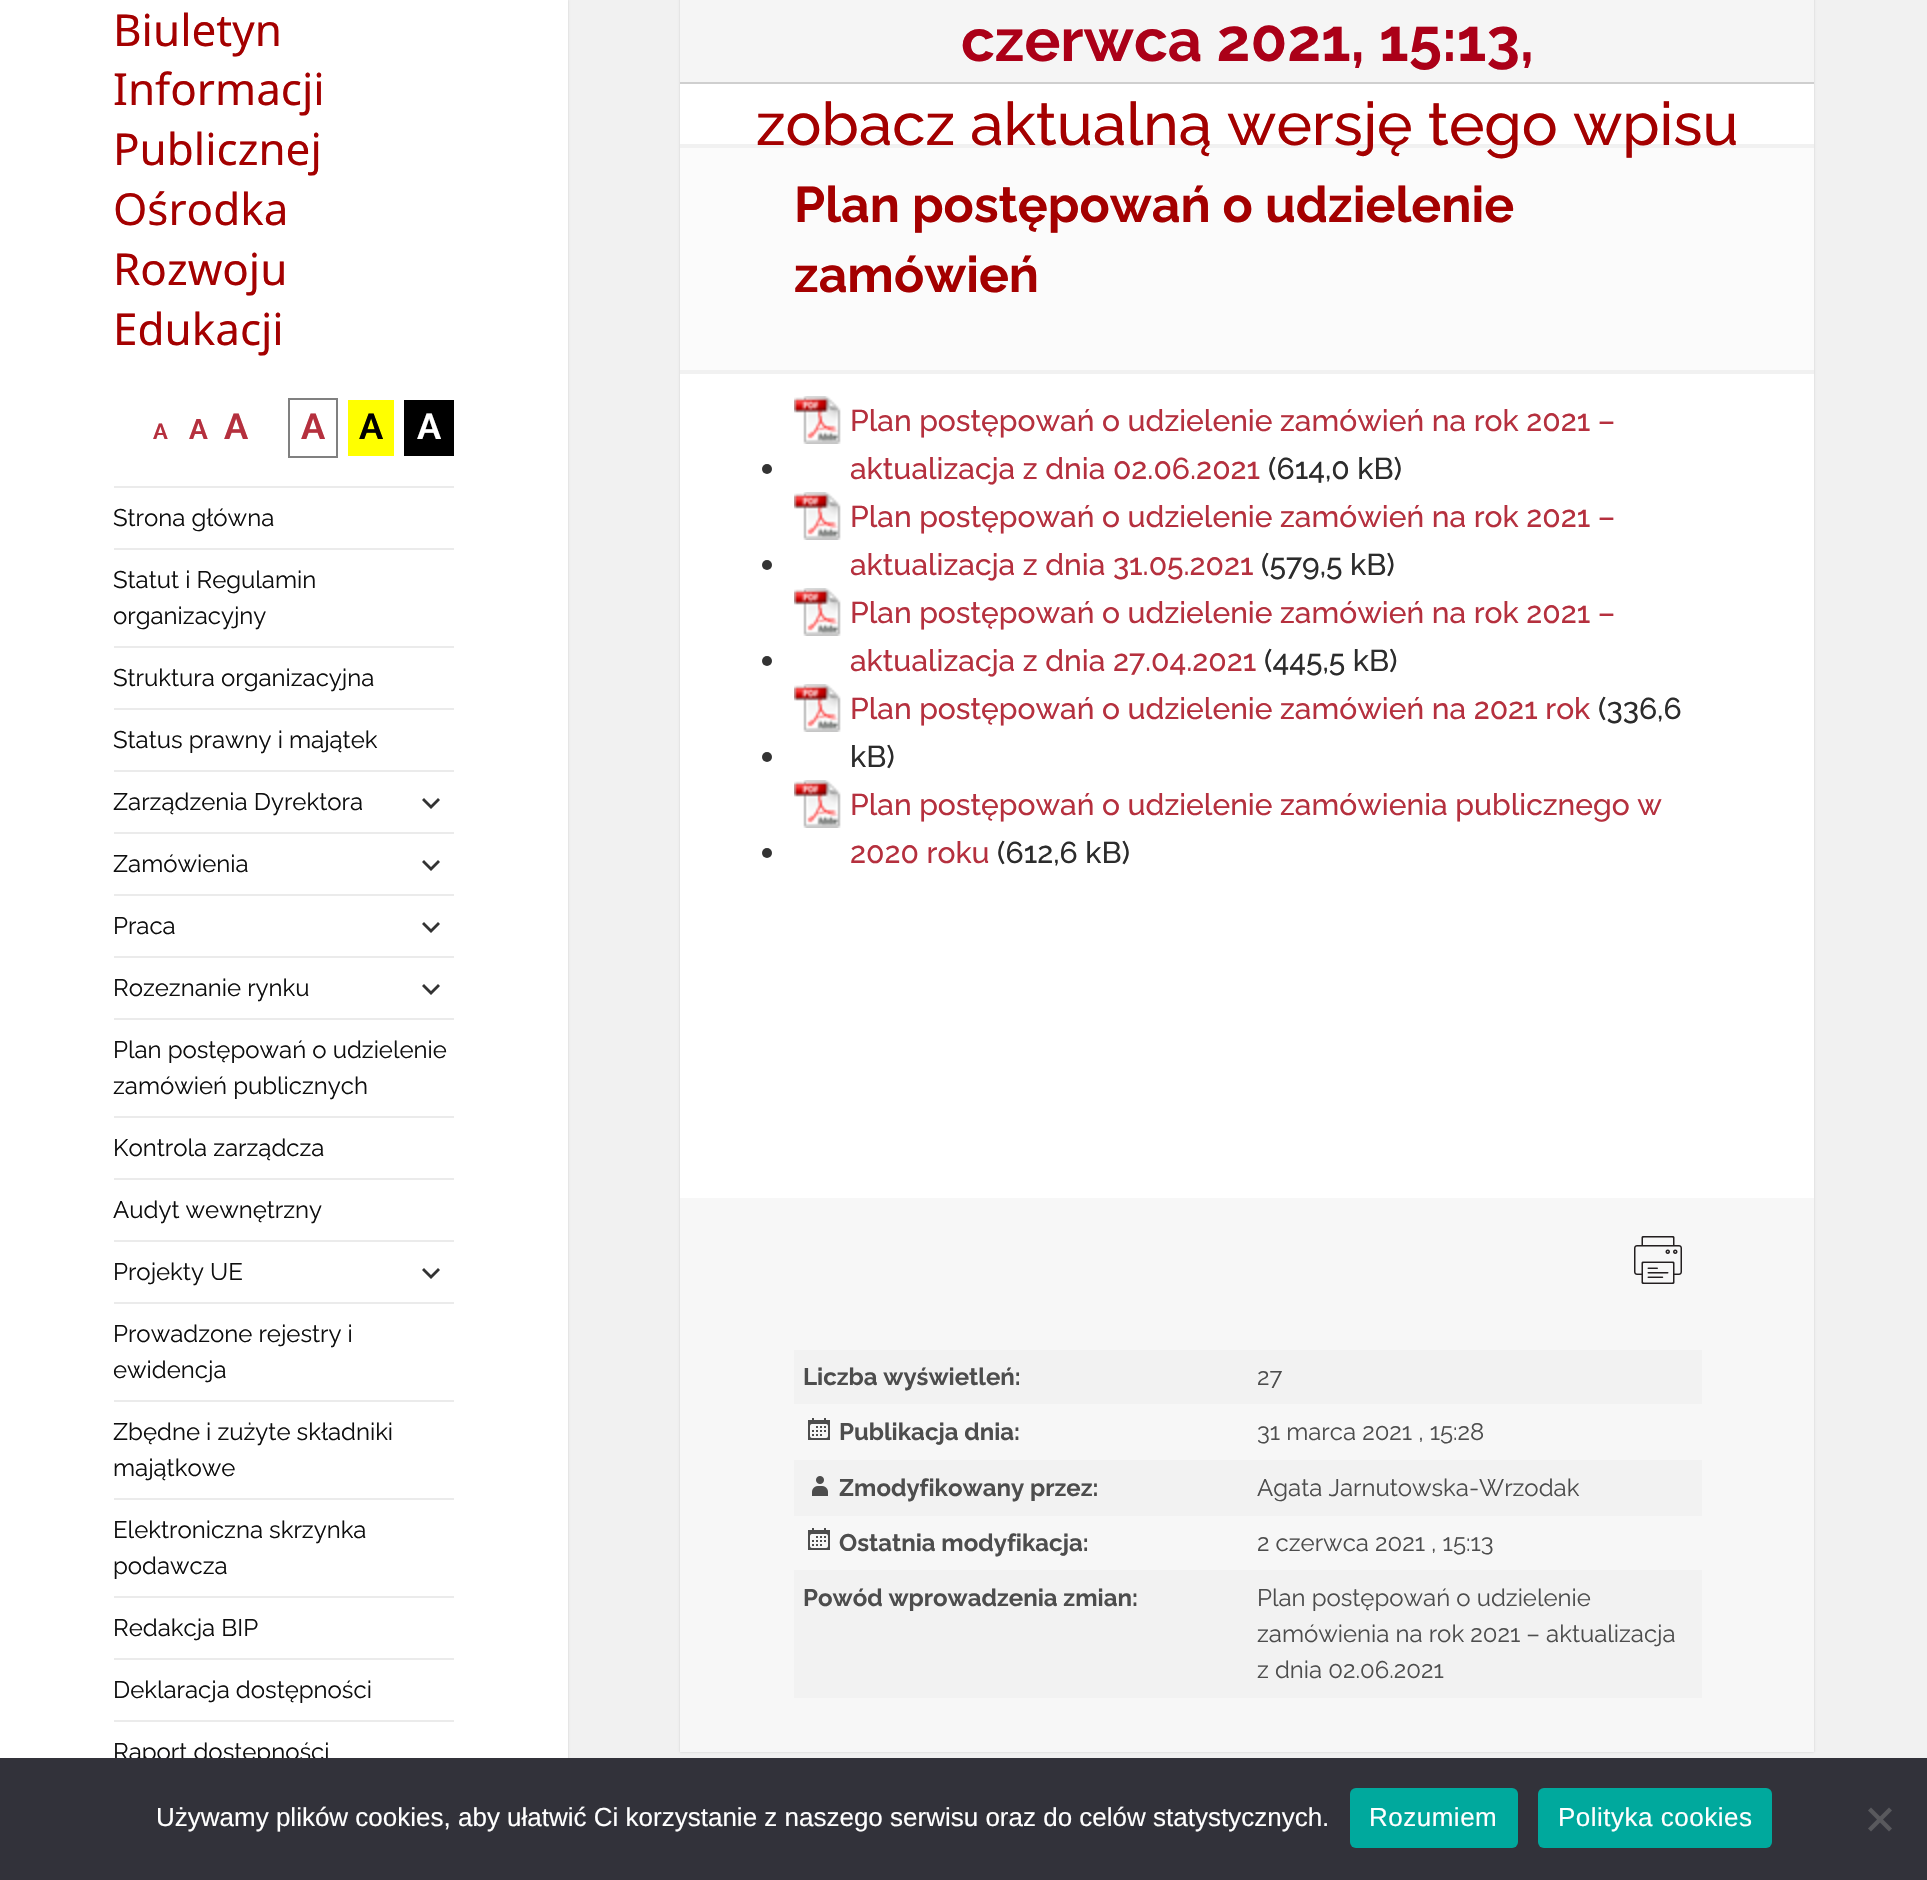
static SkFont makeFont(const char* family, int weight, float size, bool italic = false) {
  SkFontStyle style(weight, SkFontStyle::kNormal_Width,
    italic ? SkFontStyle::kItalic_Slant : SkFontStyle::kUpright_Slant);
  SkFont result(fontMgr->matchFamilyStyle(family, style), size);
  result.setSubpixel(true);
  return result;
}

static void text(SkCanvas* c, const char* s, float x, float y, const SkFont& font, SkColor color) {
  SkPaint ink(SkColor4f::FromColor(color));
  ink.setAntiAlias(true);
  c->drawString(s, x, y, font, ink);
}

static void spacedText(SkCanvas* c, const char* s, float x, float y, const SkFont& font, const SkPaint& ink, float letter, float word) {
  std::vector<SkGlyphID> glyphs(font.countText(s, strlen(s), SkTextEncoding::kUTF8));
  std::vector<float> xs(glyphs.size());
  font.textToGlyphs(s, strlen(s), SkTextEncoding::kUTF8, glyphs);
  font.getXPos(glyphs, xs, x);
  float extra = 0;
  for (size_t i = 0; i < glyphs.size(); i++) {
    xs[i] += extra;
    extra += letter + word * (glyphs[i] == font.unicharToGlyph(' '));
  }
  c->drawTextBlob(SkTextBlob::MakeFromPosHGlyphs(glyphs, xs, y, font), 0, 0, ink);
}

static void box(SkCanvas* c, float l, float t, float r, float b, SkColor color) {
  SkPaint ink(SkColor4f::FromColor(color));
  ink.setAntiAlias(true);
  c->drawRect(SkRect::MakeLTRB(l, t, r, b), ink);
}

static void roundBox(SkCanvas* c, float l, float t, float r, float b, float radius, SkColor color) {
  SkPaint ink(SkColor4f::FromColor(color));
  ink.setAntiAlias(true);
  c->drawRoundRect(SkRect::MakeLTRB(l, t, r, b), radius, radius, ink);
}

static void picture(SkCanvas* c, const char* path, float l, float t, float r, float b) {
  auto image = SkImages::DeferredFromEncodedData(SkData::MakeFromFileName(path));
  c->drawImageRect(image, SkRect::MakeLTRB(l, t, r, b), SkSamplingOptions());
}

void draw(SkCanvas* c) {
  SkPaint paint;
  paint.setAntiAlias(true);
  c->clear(0xfff1f1f1);
  paint.setColor(0x26000000);
  paint.setMaskFilter(SkMaskFilter::MakeBlur(kNormal_SkBlurStyle, 1));
  c->drawRect(SkRect::MakeLTRB(0, 0, 568, 1880), paint);
  paint.setMaskFilter(nullptr);
  box(c, 0, 0, 568, 1758, 0xffffffff);
  SkFont face1 = makeFont("Noto Sans", 400, 44);
  text(c, "Biuletyn", 113, 46, face1, 0xffa40000);
  text(c, "Informacji", 113, 105, face1, 0xffa40000);
  text(c, "Publicznej", 113, 165, face1, 0xffa40000);
  text(c, "Ośrodka", 113, 225, face1, 0xffa40000);
  text(c, "Rozwoju", 113, 285, face1, 0xffa40000);
  text(c, "Edukacji", 113, 345, face1, 0xffa40000);
  SkFont face2 = makeFont("Raleway", 700, 22);
  text(c, "A", 153, 439, face2, 0xffb5303e);
  SkFont face3 = makeFont("Raleway", 700, 28);
  text(c, "A", 189, 439, face3, 0xffb5303e);
  SkFont face4 = makeFont("Raleway", 700, 36);
  text(c, "A", 224, 439, face4, 0xffb5303e);
  paint.setStyle(SkPaint::kStroke_Style);
  paint.setStrokeWidth(2);
  paint.setColor(0xff808080);
  c->drawRect(SkRect::MakeLTRB(289, 399, 337, 457), paint);
  text(c, "A", 301, 439, face4, 0xffb5303e);
  box(c, 348, 400, 394, 456, 0xffffff00);
  text(c, "A", 359, 439, face4, 0xff000000);
  box(c, 404, 400, 454, 456, 0xff000000);
  text(c, "A", 417, 439, face4, 0xffffffff);
  box(c, 114, 486, 454, 488, 0xffebebeb);
  SkFont face5 = makeFont("Raleway", 400, 24);
  text(c, "Strona główna", 113, 526, face5, 0xff0f0f0f);
  box(c, 114, 548, 454, 550, 0xffebebeb);
  text(c, "Statut i Regulamin", 113, 588, face5, 0xff0f0f0f);
  text(c, "organizacyjny", 113, 624, face5, 0xff0f0f0f);
  box(c, 114, 646, 454, 648, 0xffebebeb);
  text(c, "Struktura organizacyjna", 113, 686, face5, 0xff0f0f0f);
  box(c, 114, 708, 454, 710, 0xffebebeb);
  text(c, "Status prawny i majątek", 113, 748, face5, 0xff0f0f0f);
  box(c, 114, 770, 454, 772, 0xffebebeb);
  text(c, "Zarządzenia Dyrektora", 113, 810, face5, 0xff0f0f0f);
  paint.setStyle(SkPaint::kFill_Style);
  paint.setColor(0xff333333);
  c->drawPath(SkPathBuilder().moveTo(438, 798).lineTo(440, 800).lineTo(431, 809).lineTo(422, 800).lineTo(424, 798).lineTo(431, 805).close().detach(), paint);
  box(c, 114, 832, 454, 834, 0xffebebeb);
  text(c, "Zamówienia", 113, 872, face5, 0xff0f0f0f);
  c->drawPath(SkPathBuilder().moveTo(438, 860).lineTo(440, 862).lineTo(431, 871).lineTo(422, 862).lineTo(424, 860).lineTo(431, 867).close().detach(), paint);
  box(c, 114, 894, 454, 896, 0xffebebeb);
  text(c, "Praca", 113, 934, face5, 0xff0f0f0f);
  c->drawPath(SkPathBuilder().moveTo(438, 922).lineTo(440, 924).lineTo(431, 933).lineTo(422, 924).lineTo(424, 922).lineTo(431, 929).close().detach(), paint);
  box(c, 114, 956, 454, 958, 0xffebebeb);
  text(c, "Rozeznanie rynku", 113, 996, face5, 0xff0f0f0f);
  c->drawPath(SkPathBuilder().moveTo(438, 984).lineTo(440, 986).lineTo(431, 995).lineTo(422, 986).lineTo(424, 984).lineTo(431, 991).close().detach(), paint);
  box(c, 114, 1018, 454, 1020, 0xffebebeb);
  text(c, "Plan postępowań o udzielenie", 113, 1058, face5, 0xff0f0f0f);
  text(c, "zamówień publicznych", 113, 1094, face5, 0xff0f0f0f);
  box(c, 114, 1116, 454, 1118, 0xffebebeb);
  text(c, "Kontrola zarządcza", 113, 1156, face5, 0xff0f0f0f);
  box(c, 114, 1178, 454, 1180, 0xffebebeb);
  text(c, "Audyt wewnętrzny", 113, 1218, face5, 0xff0f0f0f);
  box(c, 114, 1240, 454, 1242, 0xffebebeb);
  text(c, "Projekty UE", 113, 1280, face5, 0xff0f0f0f);
  c->drawPath(SkPathBuilder().moveTo(438, 1268).lineTo(440, 1270).lineTo(431, 1279).lineTo(422, 1270).lineTo(424, 1268).lineTo(431, 1275).close().detach(), paint);
  box(c, 114, 1302, 454, 1304, 0xffebebeb);
  text(c, "Prowadzone rejestry i", 113, 1342, face5, 0xff0f0f0f);
  text(c, "ewidencja", 113, 1378, face5, 0xff0f0f0f);
  box(c, 114, 1400, 454, 1402, 0xffebebeb);
  text(c, "Zbędne i zużyte składniki", 113, 1440, face5, 0xff0f0f0f);
  text(c, "majątkowe", 113, 1476, face5, 0xff0f0f0f);
  box(c, 114, 1498, 454, 1500, 0xffebebeb);
  text(c, "Elektroniczna skrzynka", 113, 1538, face5, 0xff0f0f0f);
  text(c, "podawcza", 113, 1574, face5, 0xff0f0f0f);
  box(c, 114, 1596, 454, 1598, 0xffebebeb);
  text(c, "Redakcja BIP", 113, 1636, face5, 0xff0f0f0f);
  box(c, 114, 1658, 454, 1660, 0xffebebeb);
  text(c, "Deklaracja dostępności", 113, 1698, face5, 0xff0f0f0f);
  box(c, 114, 1720, 454, 1722, 0xffebebeb);
  text(c, "Raport dostępności", 113, 1760, face5, 0xff0f0f0f);
  paint.setColor(0x26000000);
  paint.setMaskFilter(SkMaskFilter::MakeBlur(kNormal_SkBlurStyle, 1));
  c->drawRect(SkRect::MakeLTRB(680, -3, 1814, 1752), paint);
  paint.setMaskFilter(nullptr);
  box(c, 680, 84, 1814, 1198, 0xffffffff);
  box(c, 680, 0, 1814, 82, 0xfff5f5f5);
  box(c, 680, 82, 1814, 84, 0xffcfcfcf);
  SkFont face6 = makeFont("Raleway", 700, 60);
  text(c, "czerwca 2021, 15:13,", 961, 61, face6, 0xffab0018);
  box(c, 680, 148, 1814, 370, 0xfffbfbfb);
  box(c, 680, 144, 1814, 148, 0xfff1f1f1);
  SkFont face7 = makeFont("Raleway", 500, 60);
  text(c, "zobacz aktualną wersję tego wpisu", 756, 145, face7, 0xffa40000);
  box(c, 680, 370, 1814, 374, 0xfff1f1f1);
  SkFont face8 = makeFont("Raleway", 700, 50);
  text(c, "Plan postępowań o udzielenie", 794, 222, face8, 0xffa40000);
  text(c, "zamówień", 794, 292, face8, 0xffa40000);
  paint.setColor(0xff333333);
  c->drawCircle(767, 469, 5, paint);
  picture(c, "img_01.png", 794, 396, 841, 444);
  SkFont face9 = makeFont("Raleway", 500, 30);
  text(c, "Plan postępowań o udzielenie zamówień na rok 2021 –", 850, 431, face9, 0xffb5303e);
  text(c, "aktualizacja z dnia 02.06.2021", 850, 479, face9, 0xffb5303e);
  text(c, "(614,0 kB)", 1268, 479, face9, 0xff2c2c2c);
  c->drawCircle(767, 565, 5, paint);
  picture(c, "img_01.png", 794, 492, 841, 540);
  text(c, "Plan postępowań o udzielenie zamówień na rok 2021 –", 850, 527, face9, 0xffb5303e);
  text(c, "aktualizacja z dnia 31.05.2021", 850, 575, face9, 0xffb5303e);
  text(c, "(579,5 kB)", 1261, 575, face9, 0xff2c2c2c);
  c->drawCircle(767, 661, 5, paint);
  picture(c, "img_01.png", 794, 588, 841, 636);
  text(c, "Plan postępowań o udzielenie zamówień na rok 2021 –", 850, 623, face9, 0xffb5303e);
  text(c, "aktualizacja z dnia 27.04.2021", 850, 671, face9, 0xffb5303e);
  text(c, "(445,5 kB)", 1264, 671, face9, 0xff2c2c2c);
  c->drawCircle(767, 757, 5, paint);
  picture(c, "img_01.png", 794, 684, 841, 732);
  text(c, "Plan postępowań o udzielenie zamówień na 2021 rok", 850, 719, face9, 0xffb5303e);
  text(c, "(336,6", 1598, 719, face9, 0xff2c2c2c);
  text(c, "kB)", 850, 767, face9, 0xff2c2c2c);
  c->drawCircle(767, 853, 5, paint);
  picture(c, "img_01.png", 794, 780, 841, 828);
  text(c, "Plan postępowań o udzielenie zamówienia publicznego w", 850, 815, face9, 0xffb5303e);
  text(c, "2020 roku", 850, 863, face9, 0xffb5303e);
  text(c, "(612,6 kB)", 997, 863, face9, 0xff2c2c2c);
  box(c, 680, 1198, 1814, 1752, 0xfff7f7f7);
  picture(c, "img_02.png", 1634, 1236, 1682, 1284);
  box(c, 794, 1350, 1702, 1404, 0xfff2f2f2);
  SkFont face10 = makeFont("Raleway", 700, 24);
  text(c, "Liczba wyświetleń:", 803, 1385, face10, 0xff4d4d4d);
  text(c, "27", 1257, 1385, face5, 0xff4d4d4d);
  picture(c, "img_03.png", 808, 1418, 830, 1440);
  text(c, "Publikacja dnia:", 839, 1440, face10, 0xff4d4d4d);
  text(c, "31 marca 2021 , 15:28", 1257, 1440, face5, 0xff4d4d4d);
  box(c, 794, 1460, 1702, 1516, 0xfff2f2f2);
  picture(c, "img_04.png", 812, 1476, 828, 1496);
  text(c, "Zmodyfikowany przez:", 839, 1496, face10, 0xff4d4d4d);
  text(c, "Agata Jarnutowska-Wrzodak", 1257, 1496, face5, 0xff4d4d4d);
  picture(c, "img_03.png", 808, 1528, 830, 1550);
  text(c, "Ostatnia modyfikacja:", 839, 1551, face10, 0xff4d4d4d);
  text(c, "2 czerwca 2021 , 15:13", 1257, 1551, face5, 0xff4d4d4d);
  box(c, 794, 1570, 1702, 1698, 0xfff2f2f2);
  text(c, "Powód wprowadzenia zmian:", 803, 1606, face10, 0xff4d4d4d);
  text(c, "Plan postępowań o udzielenie", 1257, 1606, face5, 0xff4d4d4d);
  text(c, "zamówienia na rok 2021 – aktualizacja", 1257, 1642, face5, 0xff4d4d4d);
  text(c, "z dnia 02.06.2021", 1257, 1678, face5, 0xff4d4d4d);
  box(c, 0, 1758, 1927, 1880, 0xff32323a);
  SkFont face11 = makeFont("Liberation Sans", 400, 26);
  text(c, "Używamy plików cookies, aby ułatwić Ci korzystanie z naszego serwisu oraz do celów statystycznych.", 156, 1826, face11, 0xffffffff);
  roundBox(c, 1350, 1788, 1518, 1848, 6, 0xff00a99d);
  paint.setColor(0xffffffff);
  spacedText(c, "Rozumiem", 1369, 1826, face11, paint, 0.5f, 0);
  roundBox(c, 1538, 1788, 1772, 1848, 6, 0xff00a99d);
  spacedText(c, "Polityka cookies", 1558, 1826, face11, paint, 0.5f, 0);
  paint.setColor(0xff59595d);
  c->drawPath(SkPathBuilder().moveTo(1889, 1807.5f).lineTo(1892, 1810.5f).lineTo(1871, 1831.5f).lineTo(1868, 1828.5f).close().detach(), paint);
  c->drawPath(SkPathBuilder().moveTo(1868, 1810.5f).lineTo(1871, 1807.5f).lineTo(1892, 1828.5f).lineTo(1889, 1831.5f).close().detach(), paint);
}
